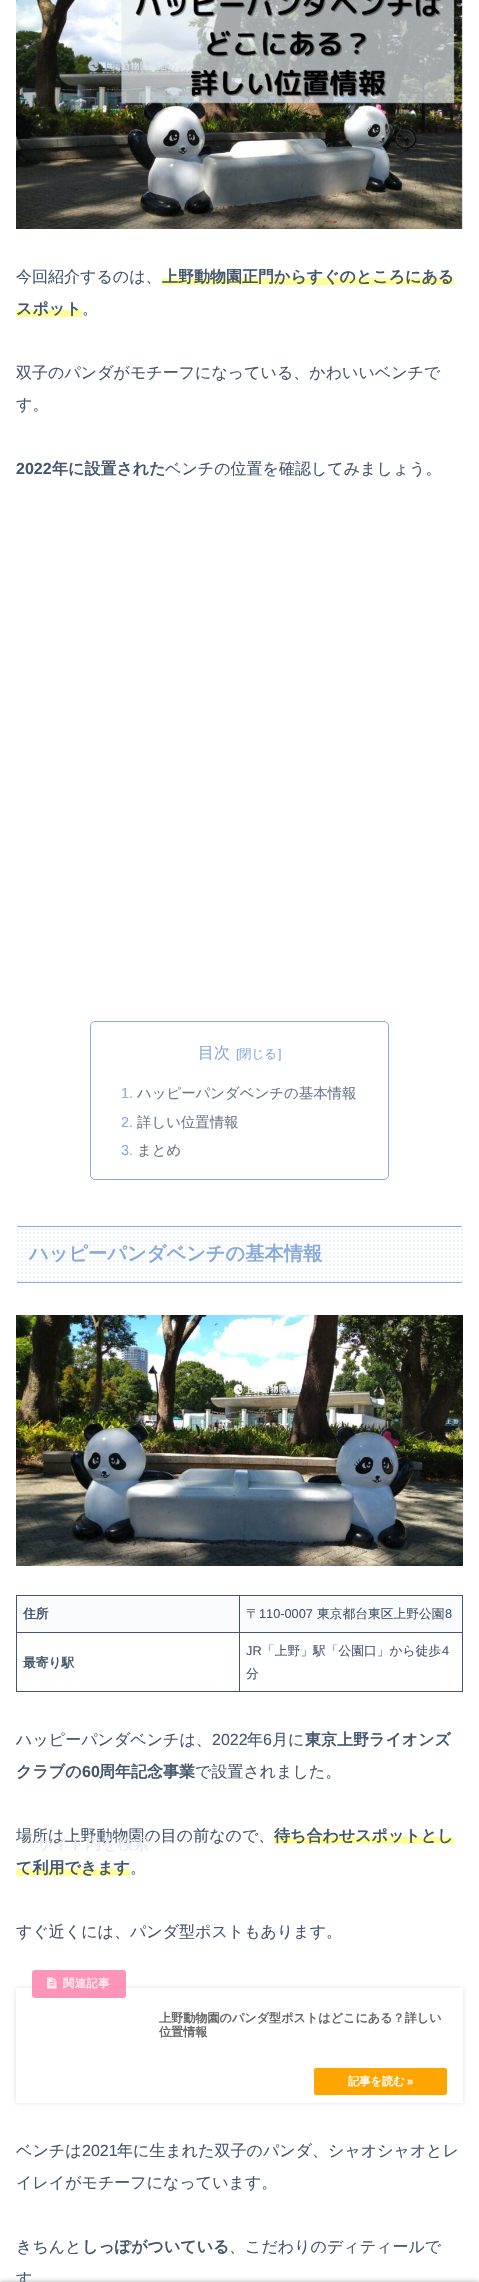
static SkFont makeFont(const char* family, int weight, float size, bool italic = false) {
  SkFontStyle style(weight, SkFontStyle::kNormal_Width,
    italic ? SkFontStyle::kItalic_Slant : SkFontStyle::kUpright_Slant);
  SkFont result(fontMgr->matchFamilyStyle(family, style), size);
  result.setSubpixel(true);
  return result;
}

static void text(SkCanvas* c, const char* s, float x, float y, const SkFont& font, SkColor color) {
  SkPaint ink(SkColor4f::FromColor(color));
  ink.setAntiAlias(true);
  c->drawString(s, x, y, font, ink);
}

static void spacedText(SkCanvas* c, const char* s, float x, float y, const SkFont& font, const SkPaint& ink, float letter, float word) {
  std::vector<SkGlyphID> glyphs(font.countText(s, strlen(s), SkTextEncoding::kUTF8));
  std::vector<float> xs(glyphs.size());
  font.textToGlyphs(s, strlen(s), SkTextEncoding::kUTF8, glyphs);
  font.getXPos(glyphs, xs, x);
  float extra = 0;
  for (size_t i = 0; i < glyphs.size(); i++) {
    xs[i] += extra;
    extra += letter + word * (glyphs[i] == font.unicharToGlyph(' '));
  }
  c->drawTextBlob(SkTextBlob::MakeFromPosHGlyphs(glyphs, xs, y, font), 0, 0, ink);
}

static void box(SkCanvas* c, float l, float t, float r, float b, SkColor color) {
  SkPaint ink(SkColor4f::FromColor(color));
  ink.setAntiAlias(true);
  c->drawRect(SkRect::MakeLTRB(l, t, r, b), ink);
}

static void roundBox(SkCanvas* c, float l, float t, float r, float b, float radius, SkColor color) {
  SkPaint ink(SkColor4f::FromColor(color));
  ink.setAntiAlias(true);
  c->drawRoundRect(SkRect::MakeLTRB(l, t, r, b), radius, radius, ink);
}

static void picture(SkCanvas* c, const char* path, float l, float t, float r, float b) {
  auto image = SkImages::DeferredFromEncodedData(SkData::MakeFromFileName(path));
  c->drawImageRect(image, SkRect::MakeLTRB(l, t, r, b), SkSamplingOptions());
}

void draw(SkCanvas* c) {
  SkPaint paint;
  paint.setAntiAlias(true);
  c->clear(0xffffffff);
  picture(c, "img_01.png", 16, 0, 463, 229);
  SkFont face1 = makeFont("WenQuanYi Zen Hei", 500, 16);
  text(c, "今回紹介するのは、", 16, 282, face1, 0xff44566d);
  box(c, 162, 278, 454, 285, 0xffffff99);
  SkFont face2 = makeFont("WenQuanYi Zen Hei", 700, 16);
  text(c, "上野動物園正門からすぐのところにある", 162, 282, face2, 0xff44566d);
  box(c, 16, 310, 82, 317, 0xffffff99);
  text(c, "スポット", 16, 314, face2, 0xff44566d);
  text(c, "。", 82, 314, face1, 0xff44566d);
  text(c, "双子のパンダがモチーフになっている、かわいいベンチで", 16, 378, face1, 0xff44566d);
  text(c, "す。", 16, 410, face1, 0xff44566d);
  SkFont face3 = makeFont("Liberation Sans", 700, 16);
  text(c, "2022", 16, 474, face3, 0xff44566d);
  text(c, "年に設置された", 52, 474, face2, 0xff44566d);
  text(c, "ベンチの位置を確認してみましょう。", 165, 474, face1, 0xff44566d);
  paint.setStyle(SkPaint::kStroke_Style);
  paint.setStrokeWidth(1);
  paint.setColor(0xff88abda);
  c->drawRoundRect(SkRect::MakeLTRB(90.5f, 1021.5f, 388.5f, 1179.5f), 4.5f, 4.5f, paint);
  text(c, "目次", 198, 1058, face1, 0xff88abda);
  SkFont face4 = makeFont("Liberation Sans", 400, 12.5f);
  text(c, "[", 236, 1058, face4, 0xff88abda);
  SkFont face5 = makeFont("WenQuanYi Zen Hei", 500, 12.5f);
  text(c, "閉じる", 239, 1058, face5, 0xff88abda);
  text(c, "]", 278, 1058, face4, 0xff88abda);
  SkFont face6 = makeFont("Liberation Sans", 400, 14.4f);
  text(c, "1.", 121, 1098, face6, 0xff88abda);
  SkFont face7 = makeFont("WenQuanYi Zen Hei", 500, 14.4f);
  text(c, "ハッピーパンダベンチの基本情報", 137, 1098, face7, 0xff69788a);
  text(c, "2.", 121, 1127, face6, 0xff88abda);
  text(c, "詳しい位置情報", 137, 1127, face7, 0xff69788a);
  text(c, "3.", 121, 1155, face6, 0xff88abda);
  text(c, "まとめ", 137, 1155, face7, 0xff69788a);
  picture(c, "img_02.png", 17, 1228, 463, 1282);
  box(c, 17, 1226, 462, 1227, 0xff88abda);
  box(c, 17, 1282, 462, 1283, 0xff88abda);
  SkFont face8 = makeFont("WenQuanYi Zen Hei", 700, 19.25f);
  text(c, "ハッピーパンダベンチの基本情報", 29, 1260, face8, 0xff88abda);
  picture(c, "img_03.png", 16, 1315, 463, 1566);
  box(c, 17, 1596, 462, 1632, 0xfffafbfc);
  box(c, 239, 1595, 463, 1596, 0xff44566d);
  box(c, 239, 1632, 463, 1633, 0xff44566d);
  box(c, 462, 1632, 463, 1692, 0xff44566d);
  box(c, 239, 1691, 463, 1692, 0xff44566d);
  box(c, 239, 1632, 240, 1692, 0xff44566d);
  box(c, 16, 1632, 240, 1633, 0xff44566d);
  box(c, 239, 1595, 240, 1633, 0xff44566d);
  box(c, 16, 1595, 240, 1596, 0xff44566d);
  box(c, 16, 1691, 240, 1692, 0xff44566d);
  box(c, 16, 1632, 17, 1692, 0xff44566d);
  box(c, 16, 1595, 17, 1633, 0xff44566d);
  SkFont face9 = makeFont("WenQuanYi Zen Hei", 700, 12.75f);
  text(c, "住所", 23, 1618, face9, 0xff44566d);
  box(c, 462, 1595, 463, 1633, 0xff44566d);
  SkFont face10 = makeFont("WenQuanYi Zen Hei", 500, 12.75f);
  text(c, "〒", 246, 1618, face10, 0xff44566d);
  SkFont face11 = makeFont("Liberation Sans", 400, 12.75f);
  text(c, "110-0007", 259, 1618, face11, 0xff44566d);
  text(c, "東京都台東区上野公園", 317, 1618, face10, 0xff44566d);
  text(c, "8", 445, 1618, face11, 0xff44566d);
  text(c, "最寄り駅", 23, 1667, face9, 0xff44566d);
  text(c, "JR", 246, 1655, face11, 0xff44566d);
  text(c, "「上野」駅「公園口」から徒歩", 262, 1655, face10, 0xff44566d);
  text(c, "4", 442, 1655, face11, 0xff44566d);
  text(c, "分", 246, 1678, face10, 0xff44566d);
  text(c, "ハッピーパンダベンチは、", 16, 1745, face1, 0xff44566d);
  SkFont face12 = makeFont("Liberation Sans", 400, 16);
  text(c, "2022", 212, 1745, face12, 0xff44566d);
  text(c, "年", 247, 1745, face1, 0xff44566d);
  text(c, "6", 263, 1745, face12, 0xff44566d);
  text(c, "月に", 272, 1745, face1, 0xff44566d);
  text(c, "東京上野ライオンズ", 305, 1745, face2, 0xff44566d);
  text(c, "クラブの", 16, 1777, face2, 0xff44566d);
  text(c, "60", 82, 1777, face3, 0xff44566d);
  text(c, "周年記念事業", 99, 1777, face2, 0xff44566d);
  text(c, "で設置されました。", 195, 1777, face1, 0xff44566d);
  text(c, "場所は上野動物園の目の前なので、", 16, 1841, face1, 0xff44566d);
  box(c, 274, 1837, 454, 1844, 0xffffff99);
  text(c, "待ち合わせスポットとし", 274, 1841, face2, 0xff44566d);
  box(c, 16, 1869, 130, 1876, 0xffffff99);
  text(c, "て利用できます", 16, 1873, face2, 0xff44566d);
  text(c, "。", 130, 1873, face1, 0xff44566d);
  text(c, "すぐ近くには、パンダ型ポストもあります。", 16, 1937, face1, 0xff44566d);
  c->save();
  c->clipPath(SkPathBuilder(SkPathFillType::kEvenOdd).moveTo(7, 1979).lineTo(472, 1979).lineTo(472, 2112).lineTo(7, 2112).close().moveTo(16, 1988).lineTo(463, 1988).lineTo(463, 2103).lineTo(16, 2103).close().detach(), true);
  paint.setStyle(SkPaint::kFill_Style);
  paint.setColor(0x33646464);
  paint.setMaskFilter(SkMaskFilter::MakeBlur(kNormal_SkBlurStyle, 2.5f));
  c->drawRect(SkRect::MakeLTRB(16, 1988, 463, 2103), paint);
  paint.setMaskFilter(nullptr);
  c->restore();
  roundBox(c, 32, 1970, 126, 1998, 3, 0xccfd79a8);
  picture(c, "img_04.png", 47, 1977, 57, 1989);
  SkFont face13 = makeFont("WenQuanYi Zen Hei", 700, 11.25f);
  paint.setColor(0xffffe9f1);
  spacedText(c, "関連記事", 63, 1987, face13, paint, 0.5f, 0);
  SkFont face14 = makeFont("WenQuanYi Zen Hei", 700, 12.1f);
  text(c, "上野動物園のパンダ型ポストはどこにある？詳しい", 159, 2022, face14, 0xff666666);
  text(c, "位置情報", 159, 2036, face14, 0xff666666);
  roundBox(c, 314, 2068, 447, 2095, 2, 0xffffa500);
  text(c, "記事を読む", 348, 2085, face13, 0xffffffff);
  SkFont face15 = makeFont("Liberation Sans", 700, 11.25f);
  text(c, "»", 407, 2085, face15, 0xffffffff);
  text(c, "ベンチは", 16, 2156, face1, 0xff44566d);
  text(c, "2021", 82, 2156, face12, 0xff44566d);
  text(c, "年に生まれた双子のパンダ、シャオシャオとレ", 117, 2156, face1, 0xff44566d);
  text(c, "イレイがモチーフになっています。", 16, 2188, face1, 0xff44566d);
  text(c, "きちんと", 16, 2252, face1, 0xff44566d);
  text(c, "しっぽがついている", 82, 2252, face2, 0xff44566d);
  text(c, "、こだわりのディティールで", 229, 2252, face1, 0xff44566d);
  text(c, "す", 16, 2284, face1, 0xff44566d);
  paint.setColor(0xffa9a9a9);
  paint.setMaskFilter(SkMaskFilter::MakeBlur(kNormal_SkBlurStyle, 2.5f));
  c->drawRect(SkRect::MakeLTRB(0, 2282, 479, 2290), paint);
  paint.setMaskFilter(nullptr);
  text(c, "サイト内を検索", 36, 1849, face1, 0xffe7e9ec);
}
